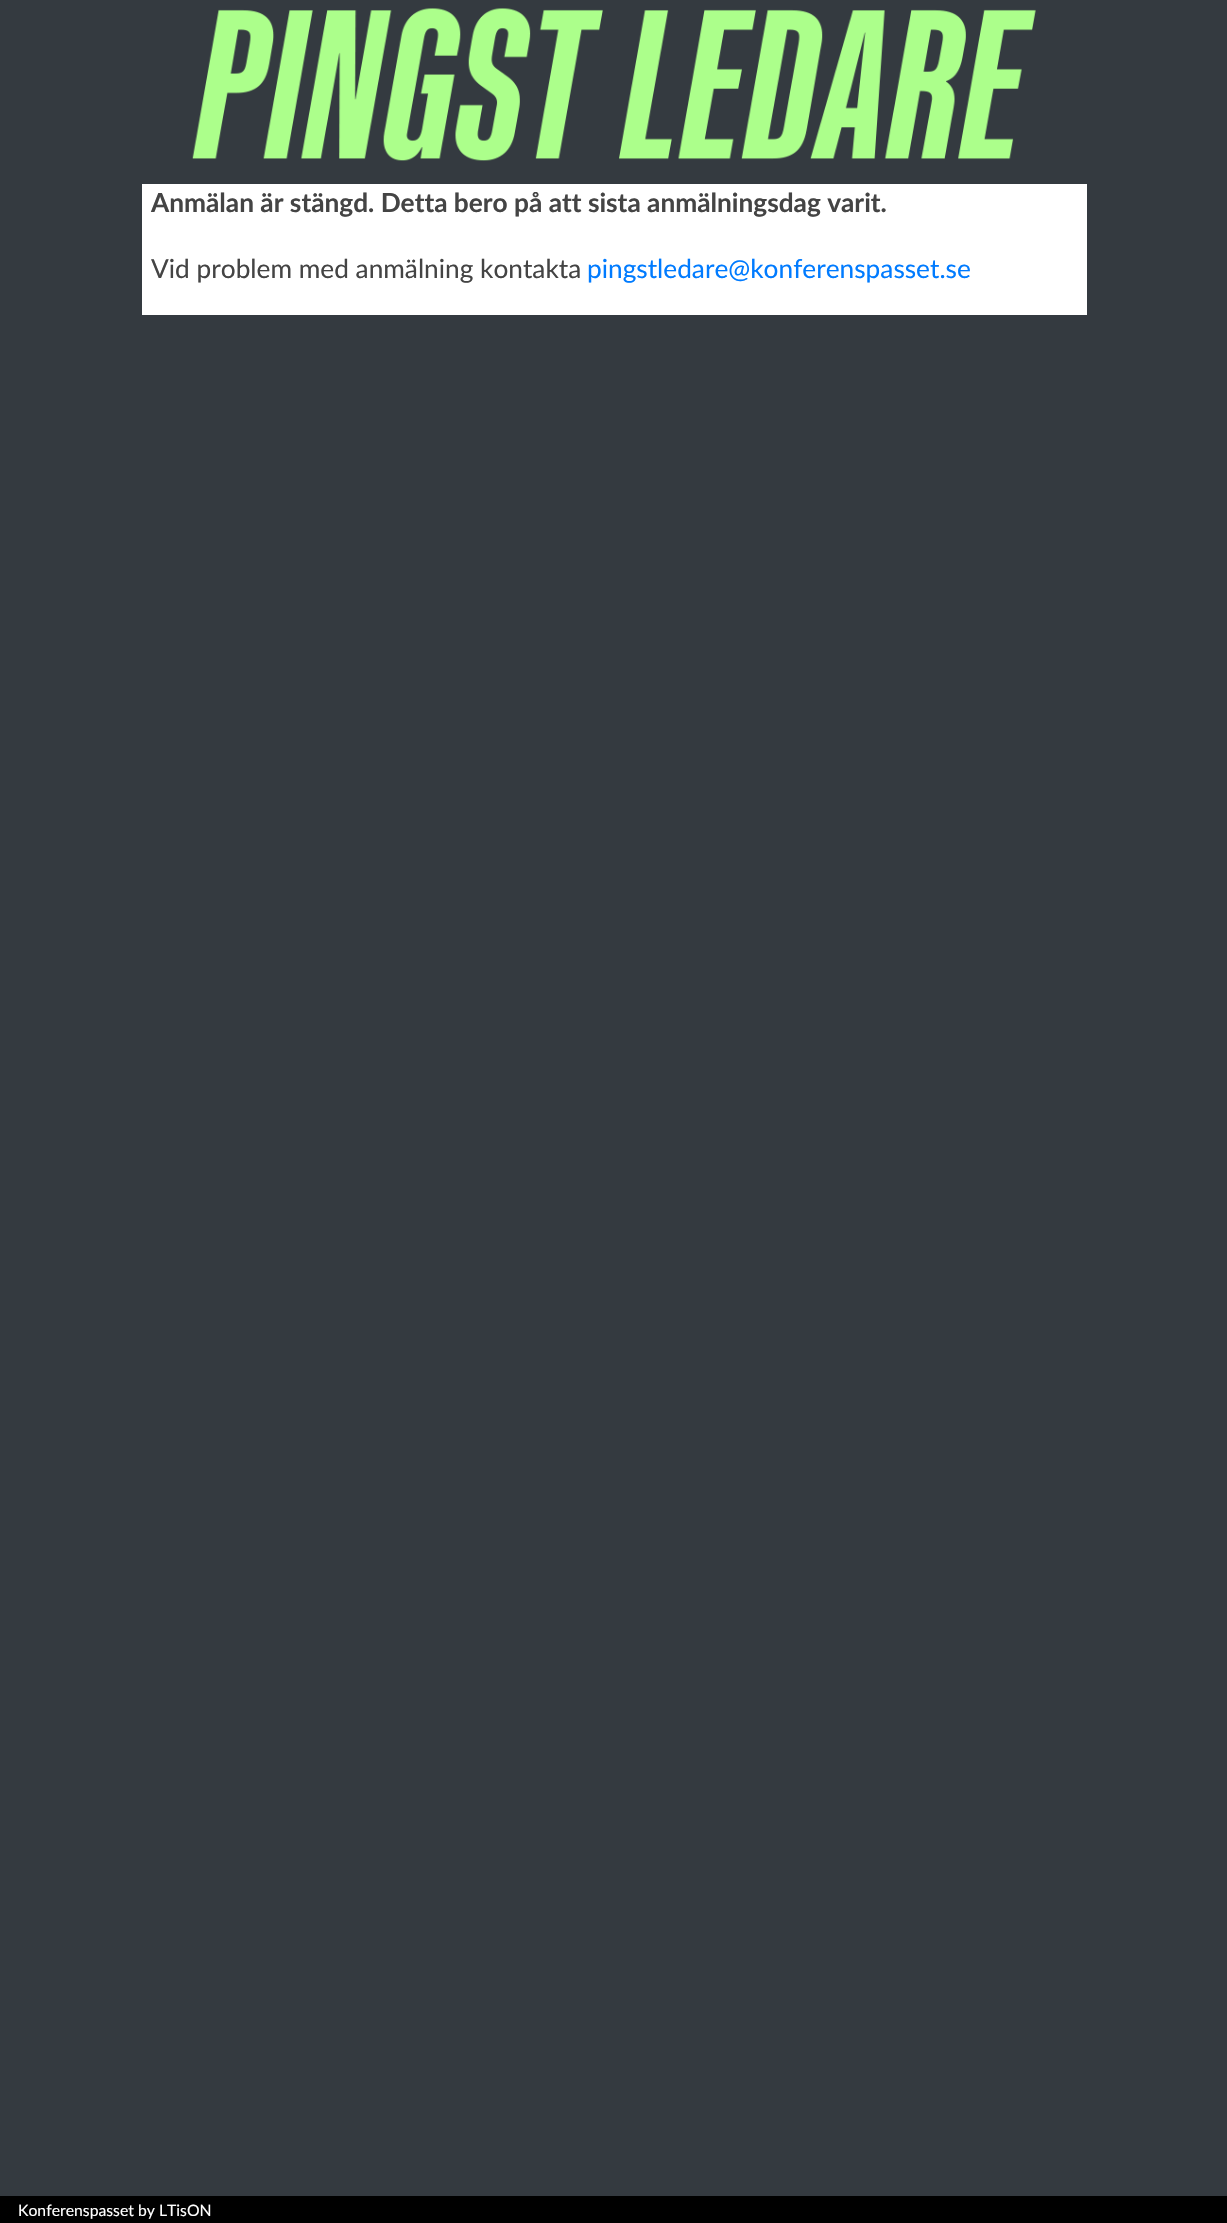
static SkFont makeFont(const char* family, int weight, float size, bool italic = false) {
  SkFontStyle style(weight, SkFontStyle::kNormal_Width,
    italic ? SkFontStyle::kItalic_Slant : SkFontStyle::kUpright_Slant);
  SkFont result(fontMgr->matchFamilyStyle(family, style), size);
  result.setSubpixel(true);
  return result;
}

static void text(SkCanvas* c, const char* s, float x, float y, const SkFont& font, SkColor color) {
  SkPaint ink(SkColor4f::FromColor(color));
  ink.setAntiAlias(true);
  c->drawString(s, x, y, font, ink);
}

static void box(SkCanvas* c, float l, float t, float r, float b, SkColor color) {
  SkPaint ink(SkColor4f::FromColor(color));
  ink.setAntiAlias(true);
  c->drawRect(SkRect::MakeLTRB(l, t, r, b), ink);
}

static void picture(SkCanvas* c, const char* path, float l, float t, float r, float b) {
  auto image = SkImages::DeferredFromEncodedData(SkData::MakeFromFileName(path));
  c->drawImageRect(image, SkRect::MakeLTRB(l, t, r, b), SkSamplingOptions());
}

void draw(SkCanvas* c) {
  SkPaint paint;
  paint.setAntiAlias(true);
  c->clear(0xff343a40);
  picture(c, "img_01.png", 192, 8, 1036, 161);
  box(c, 142, 184, 1087, 315, 0xffffffff);
  SkFont face1 = makeFont("Lato", 700, 26.25f);
  text(c, "Anmälan är stängd. Detta bero på att sista anmälningsdag varit.", 151, 212, face1, 0xff444444);
  SkFont face2 = makeFont("Lato", 400, 26.25f);
  text(c, "Vid problem med anmälning kontakta", 151, 278, face2, 0xff444444);
  text(c, "pingstledare@konferenspasset.se", 587, 278, face2, 0xff007bff);
  box(c, 0, 2196, 1227, 2223, 0xff000000);
  SkFont face3 = makeFont("Lato", 400, 15.75f);
  text(c, "Konferenspasset by LTisON", 18, 2216, face3, 0xffffffff);
}
